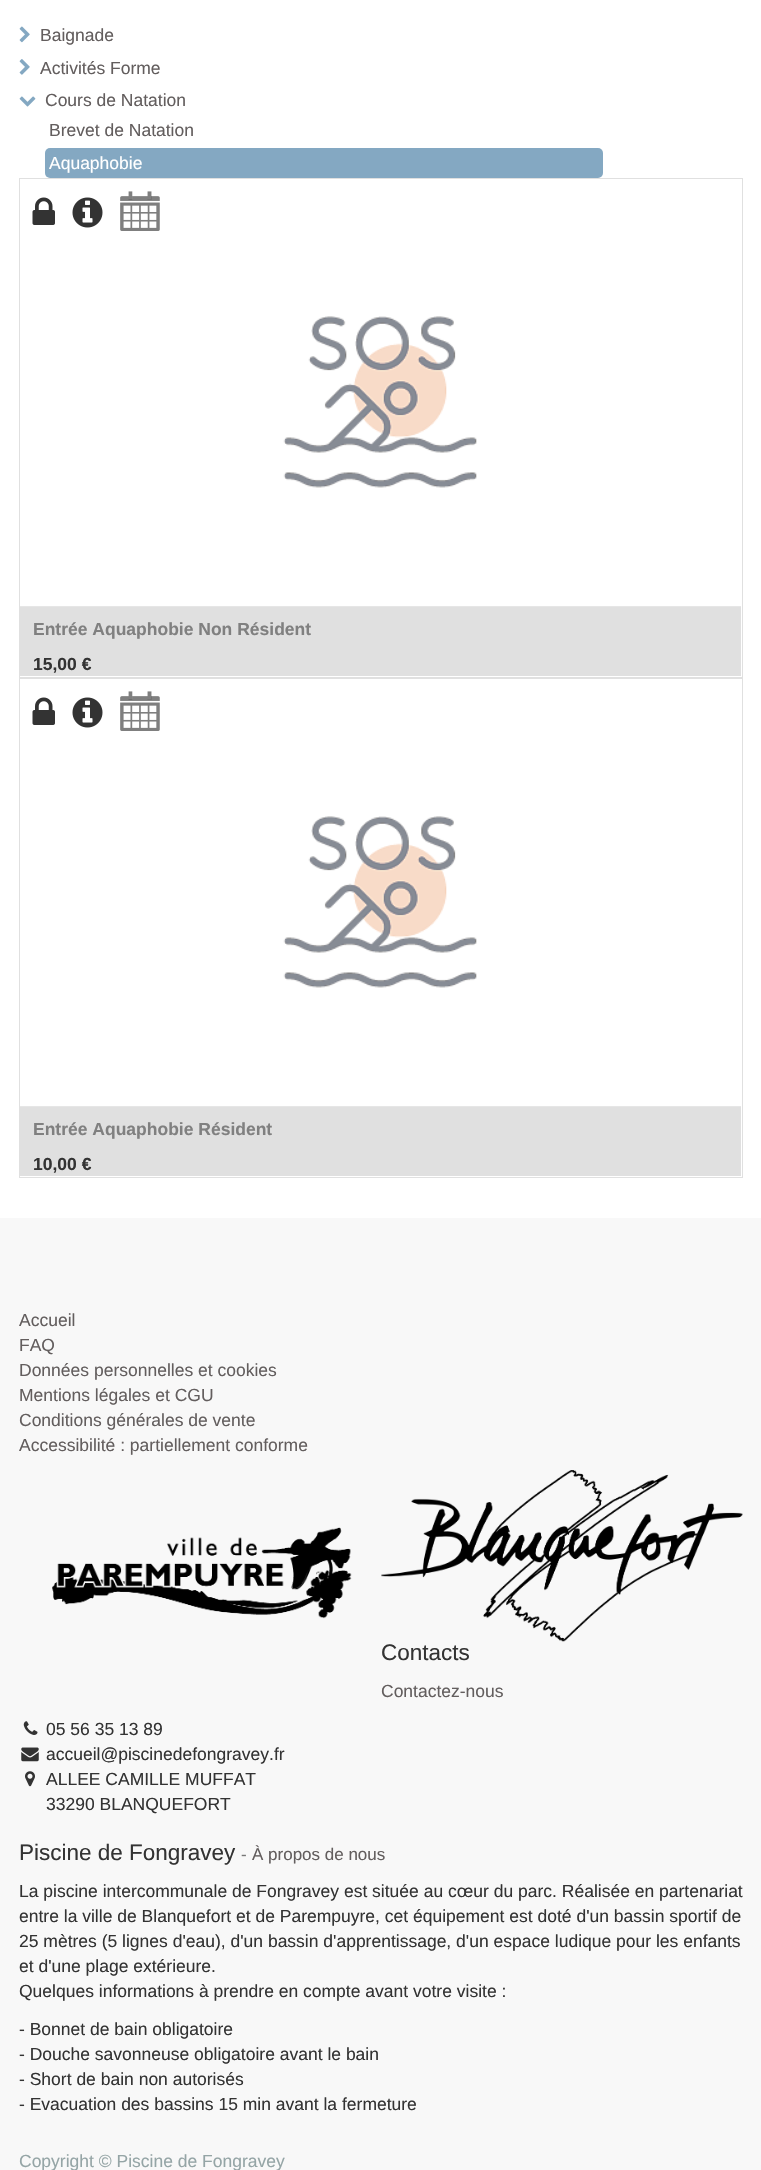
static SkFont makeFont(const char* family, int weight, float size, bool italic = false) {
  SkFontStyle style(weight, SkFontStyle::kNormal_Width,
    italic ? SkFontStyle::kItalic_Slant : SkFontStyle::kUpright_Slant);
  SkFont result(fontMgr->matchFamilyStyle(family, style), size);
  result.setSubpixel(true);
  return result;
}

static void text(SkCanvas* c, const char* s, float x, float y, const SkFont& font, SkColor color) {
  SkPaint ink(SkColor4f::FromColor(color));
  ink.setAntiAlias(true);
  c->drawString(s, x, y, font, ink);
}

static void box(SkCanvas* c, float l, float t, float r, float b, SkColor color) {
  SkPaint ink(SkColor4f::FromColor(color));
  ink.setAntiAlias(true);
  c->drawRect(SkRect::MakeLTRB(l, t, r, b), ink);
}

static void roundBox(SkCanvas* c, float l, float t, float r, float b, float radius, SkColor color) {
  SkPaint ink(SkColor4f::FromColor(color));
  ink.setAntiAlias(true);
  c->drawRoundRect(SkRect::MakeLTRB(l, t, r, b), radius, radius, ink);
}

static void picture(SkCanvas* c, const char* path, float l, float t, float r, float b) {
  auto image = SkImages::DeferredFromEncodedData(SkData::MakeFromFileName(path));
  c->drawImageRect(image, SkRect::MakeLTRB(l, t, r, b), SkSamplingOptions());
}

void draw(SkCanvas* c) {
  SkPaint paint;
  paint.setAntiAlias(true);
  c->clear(0xffffffff);
  picture(c, "img_01.png", 19, 26, 30, 43);
  SkFont face1 = makeFont("Liberation Sans", 400, 17.5f);
  text(c, "Baignade", 40, 41, face1, 0xff635e5e);
  picture(c, "img_02.png", 19, 59, 30, 75);
  text(c, "Activités Forme", 40, 74, face1, 0xff635e5e);
  picture(c, "img_03.png", 19, 96, 36, 107);
  text(c, "Cours de Natation", 45, 106, face1, 0xff635e5e);
  text(c, "Brevet de Natation", 49, 136, face1, 0xff635e5e);
  roundBox(c, 45, 148, 603, 178, 5, 0xff84a8c2);
  text(c, "Aquaphobie", 49, 169, face1, 0xffffffff);
  paint.setStyle(SkPaint::kStroke_Style);
  paint.setStrokeWidth(1);
  paint.setColor(0xffe0e0e0);
  c->drawRect(SkRect::MakeLTRB(19.5f, 178.5f, 742.5f, 677.5f), paint);
  picture(c, "img_04.png", 32, 197, 55, 225);
  picture(c, "img_05.png", 72, 197, 103, 228);
  picture(c, "img_06.png", 120, 191, 160, 231);
  picture(c, "img_07.png", 283, 316, 477, 488);
  box(c, 20, 607, 741, 676, 0xffe0e0e0);
  box(c, 20, 606, 741, 607, 0xffe6e6e6);
  SkFont face2 = makeFont("Liberation Sans", 700, 17.5f);
  text(c, "Entrée Aquaphobie Non Résident", 33, 635, face2, 0xff808080);
  text(c, "15,00 €", 33, 670, face2, 0xff333333);
  c->drawRect(SkRect::MakeLTRB(19.5f, 678.5f, 742.5f, 1177.5f), paint);
  picture(c, "img_04.png", 32, 697, 55, 725);
  picture(c, "img_05.png", 72, 697, 103, 728);
  picture(c, "img_06.png", 120, 691, 160, 731);
  picture(c, "img_07.png", 283, 816, 477, 988);
  box(c, 20, 1107, 741, 1176, 0xffe0e0e0);
  box(c, 20, 1106, 741, 1107, 0xffe6e6e6);
  text(c, "Entrée Aquaphobie Résident", 33, 1135, face2, 0xff808080);
  text(c, "10,00 €", 33, 1170, face2, 0xff333333);
  box(c, 0, 1218, 761, 2170, 0xfff8f8f8);
  text(c, "Accueil", 19, 1326, face1, 0xff635e5e);
  text(c, "FAQ", 19, 1351, face1, 0xff635e5e);
  text(c, "Données personnelles et cookies", 19, 1376, face1, 0xff635e5e);
  text(c, "Mentions légales et CGU", 19, 1401, face1, 0xff635e5e);
  text(c, "Conditions générales de vente", 19, 1426, face1, 0xff635e5e);
  text(c, "Accessibilité : partiellement conforme", 19, 1451, face1, 0xff635e5e);
  picture(c, "img_08.png", 52, 1527, 352, 1619);
  picture(c, "img_09.png", 381, 1470, 743, 1642);
  SkFont face3 = makeFont("Liberation Sans", 400, 22.5f);
  text(c, "Contacts", 381, 1660, face3, 0xff333333);
  text(c, "Contactez-nous", 381, 1697, face1, 0xff635e5e);
  picture(c, "img_10.png", 23, 1721, 38, 1735);
  text(c, "05 56 35 13 89", 46, 1735, face1, 0xff333333);
  picture(c, "img_11.png", 21, 1747, 39, 1762);
  text(c, "accueil@piscinedefongravey.fr", 46, 1760, face1, 0xff333333);
  picture(c, "img_12.png", 25, 1771, 35, 1787);
  text(c, "ALLEE CAMILLE MUFFAT", 46, 1785, face1, 0xff333333);
  text(c, "33290 BLANQUEFORT", 46, 1810, face1, 0xff333333);
  text(c, "Piscine de Fongravey", 19, 1860, face3, 0xff333333);
  SkFont face4 = makeFont("Liberation Sans", 400, 17);
  text(c, "-", 241, 1860, face4, 0xff777777);
  text(c, "À propos de nous", 252, 1860, face4, 0xff635e5e);
  text(c, "La piscine intercommunale de Fongravey est située au cœur du parc. Réalisée en partenariat", 19, 1897, face1, 0xff333333);
  text(c, "entre la ville de Blanquefort et de Parempuyre, cet équipement est doté d'un bassin sportif de", 19, 1922, face1, 0xff333333);
  text(c, "25 mètres (5 lignes d'eau), d'un bassin d'apprentissage, d'un espace ludique pour les enfants", 19, 1947, face1, 0xff333333);
  text(c, "et d'une plage extérieure.", 19, 1972, face1, 0xff333333);
  text(c, "Quelques informations à prendre en compte avant votre visite :", 19, 1997, face1, 0xff333333);
  text(c, "- Bonnet de bain obligatoire", 19, 2035, face1, 0xff333333);
  text(c, "- Douche savonneuse obligatoire avant le bain", 19, 2060, face1, 0xff333333);
  text(c, "- Short de bain non autorisés", 19, 2085, face1, 0xff333333);
  text(c, "- Evacuation des bassins 15 min avant la fermeture", 19, 2110, face1, 0xff333333);
  text(c, "Copyright © Piscine de Fongravey", 19, 2167, face1, 0xff95a5a6);
}
